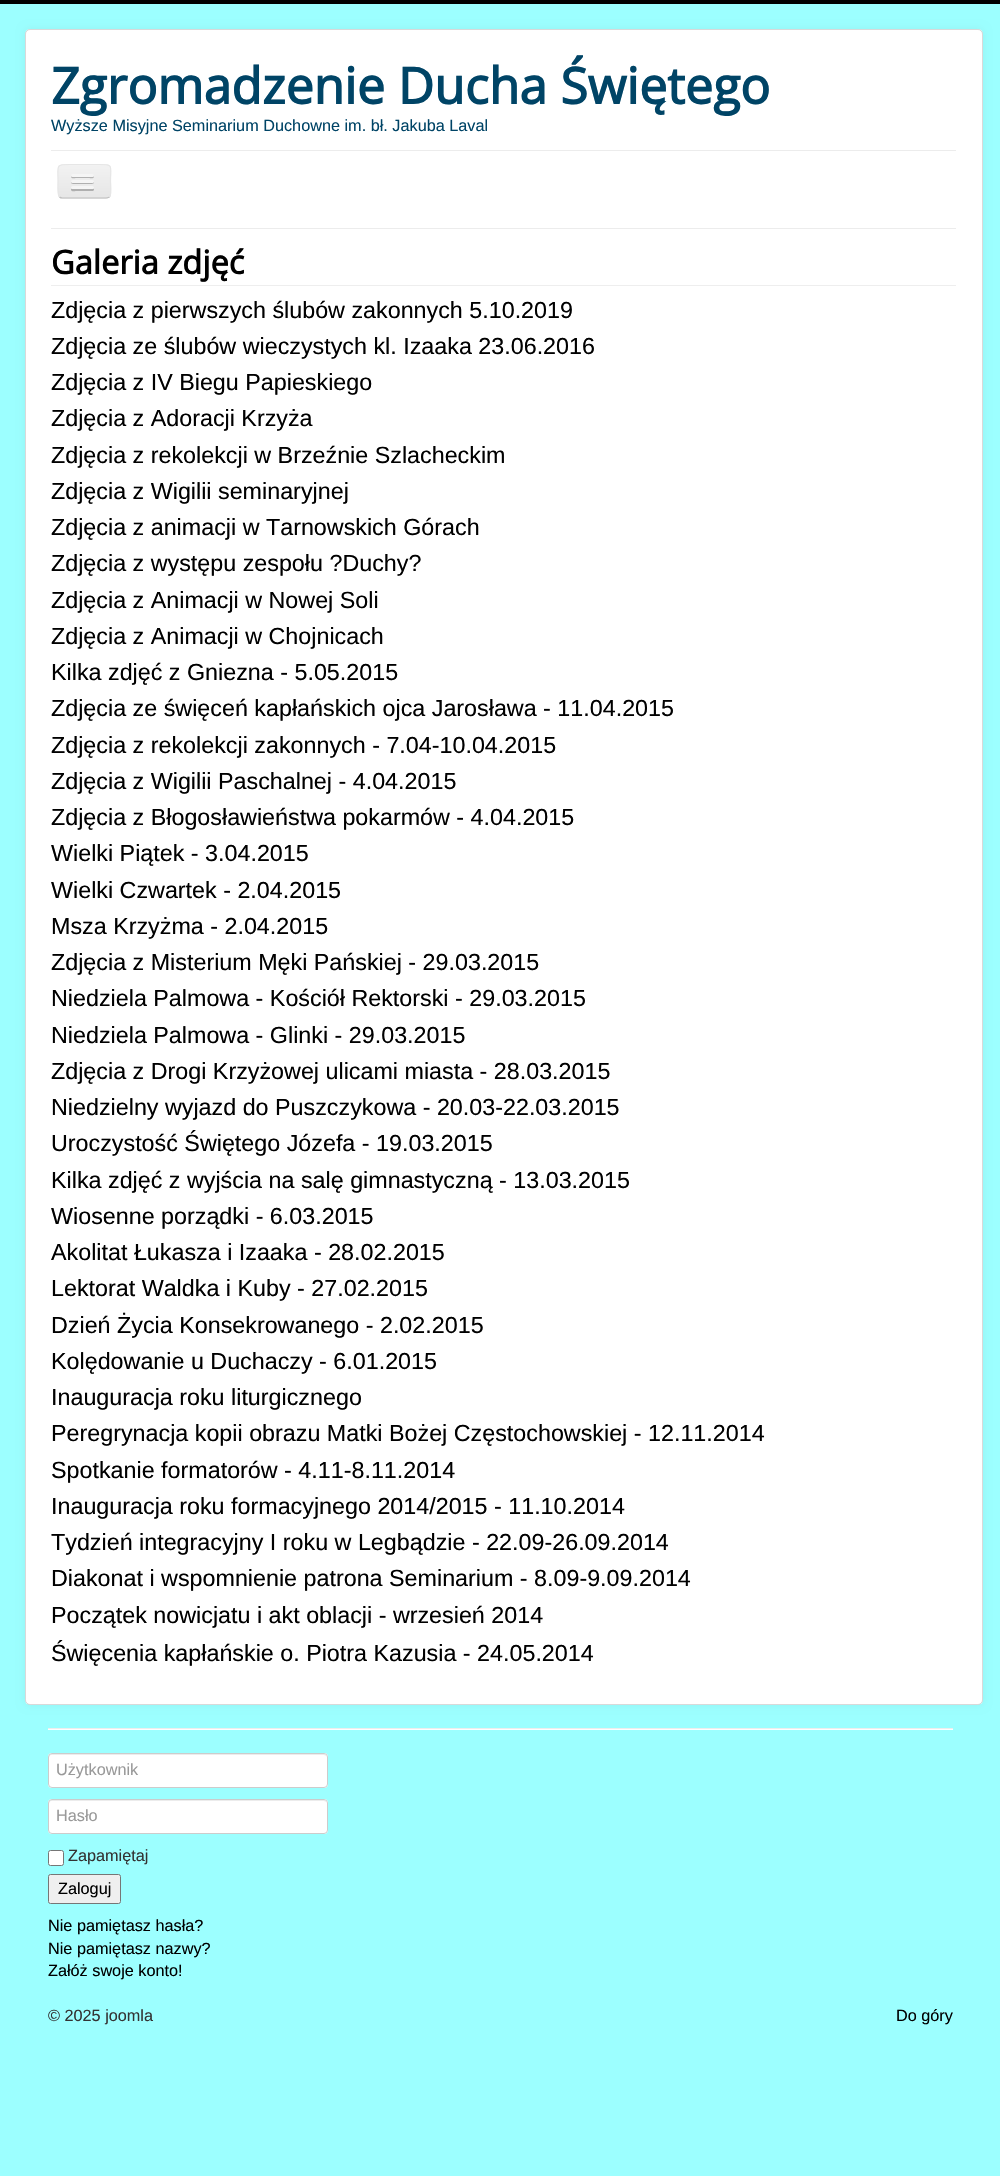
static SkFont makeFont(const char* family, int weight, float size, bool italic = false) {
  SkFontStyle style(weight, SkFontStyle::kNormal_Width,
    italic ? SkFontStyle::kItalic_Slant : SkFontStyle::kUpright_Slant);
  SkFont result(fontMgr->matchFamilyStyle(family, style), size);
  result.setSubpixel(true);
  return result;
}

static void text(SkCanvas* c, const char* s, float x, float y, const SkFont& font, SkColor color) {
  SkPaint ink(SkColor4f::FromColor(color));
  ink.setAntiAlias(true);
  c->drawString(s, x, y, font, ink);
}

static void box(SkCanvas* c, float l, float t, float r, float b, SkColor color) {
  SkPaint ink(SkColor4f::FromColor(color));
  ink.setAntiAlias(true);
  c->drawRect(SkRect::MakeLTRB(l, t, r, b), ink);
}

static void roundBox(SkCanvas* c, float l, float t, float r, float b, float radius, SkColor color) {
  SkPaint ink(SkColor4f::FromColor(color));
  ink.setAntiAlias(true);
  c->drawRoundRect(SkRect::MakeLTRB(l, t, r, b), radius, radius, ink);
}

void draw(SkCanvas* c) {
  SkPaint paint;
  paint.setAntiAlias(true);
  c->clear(0xff9cffff);
  box(c, 0, 0, 1000, 4, 0xff000000);
  paint.setColor(0x0d000000);
  paint.setMaskFilter(SkMaskFilter::MakeBlur(kNormal_SkBlurStyle, 4));
  c->drawRoundRect(SkRect::MakeLTRB(25, 29, 983, 1705), 5, 5, paint);
  paint.setMaskFilter(nullptr);
  roundBox(c, 25, 29, 983, 1705, 5, 0xffffffff);
  paint.setStyle(SkPaint::kStroke_Style);
  paint.setStrokeWidth(1);
  paint.setColor(0x26000000);
  c->drawRoundRect(SkRect::MakeLTRB(25.5f, 29.5f, 982.5f, 1704.5f), 4.5f, 4.5f, paint);
  SkFont face1 = makeFont("Open Sans", 700, 50);
  text(c, "Zgromadzenie Ducha Świętego", 51, 104, face1, 0xff004466);
  SkFont face2 = makeFont("Liberation Sans", 400, 16.25f);
  text(c, "Wyższe Misyjne Seminarium Duchowne im. bł. Jakuba Laval", 51, 131, face2, 0xff004466);
  box(c, 51, 150, 956, 151, 0xffececec);
  box(c, 51, 228, 956, 229, 0xffececec);
  roundBox(c, 58, 164, 111, 199, 5, 0xffededed);
  c->save();
  c->clipPath(SkPathBuilder().moveTo(63, 164).lineTo(106, 164).cubicTo(109, 164, 111, 166, 111, 169).lineTo(111, 194).cubicTo(111, 197, 109, 199, 106, 199).lineTo(63, 199).cubicTo(60, 199, 58, 197, 58, 194).lineTo(58, 169).cubicTo(58, 166, 60, 164, 63, 164).close().detach(), true);
  paint.setStyle(SkPaint::kFill_Style);
  {
    const SkColor colors[] = {0xfff2f2f2, 0xffe6e6e6};
    const float stops[] = {0, 1};
    const SkPoint ends[] = {{84, 165}, {84, 198}};
    paint.setShader(SkGradientShader::MakeLinear(ends, colors, stops, 2, SkTileMode::kClamp));
    paint.setAlpha(255);
  }
  c->drawRect(SkRect::MakeLTRB(58, 165, 111, 198), paint);
  c->restore();
  paint.setStyle(SkPaint::kStroke_Style);
  paint.setStrokeWidth(1.2f);
  paint.setShader(nullptr);
  paint.setColor(0xffbfbfbf);
  c->drawPath(SkPathBuilder().moveTo(109.5f, 197).cubicTo(108.5f, 197.5f, 107.5f, 198, 106, 198).lineTo(62.5f, 198).cubicTo(61.5f, 198, 60, 197.5f, 59.5f, 197).detach(), paint);
  paint.setColor(0xffe6e6e6);
  c->drawPath(SkPathBuilder().moveTo(59.5f, 197).cubicTo(57, 194.5f, 58, 184.5f, 58, 181).cubicTo(58, 165.5f, 55, 164.5f, 70, 164.5f).lineTo(99, 164.5f).cubicTo(114, 164.5f, 110.5f, 165.5f, 110.5f, 181).cubicTo(110.5f, 184.5f, 112, 194.5f, 109.5f, 197).detach(), paint);
  paint.setStyle(SkPaint::kFill_Style);
  paint.setColor(0xffb2b2b2);
  c->drawPath(SkPathBuilder().moveTo(71.5f, 175.5f).lineTo(71, 177).cubicTo(71.5f, 179, 75, 178, 76, 178).lineTo(89, 178).cubicTo(90, 178, 93.5f, 179, 94, 177).lineTo(93.5f, 175.5f).cubicTo(93.5f, 176, 93, 176, 92.5f, 176).lineTo(72.5f, 176).cubicTo(72, 176, 71.5f, 176, 71.5f, 175.5f).close().detach(), paint);
  roundBox(c, 71, 174, 94, 177, 1.5f, 0xfff5f5f5);
  paint.setColor(0xffb0b0b0);
  c->drawPath(SkPathBuilder().moveTo(71.5f, 181.5f).cubicTo(69, 184.5f, 75.5f, 184, 76, 184).lineTo(89, 184).cubicTo(89.5f, 184, 96, 184.5f, 93.5f, 181.5f).cubicTo(93.5f, 182, 93, 182.5f, 92.5f, 182.5f).lineTo(72.5f, 182.5f).cubicTo(72, 182.5f, 71.5f, 182, 71.5f, 181.5f).close().detach(), paint);
  roundBox(c, 71, 180, 94, 183, 1.5f, 0xfff5f5f5);
  paint.setColor(0xffafafaf);
  c->drawPath(SkPathBuilder().moveTo(71.5f, 188.5f).cubicTo(71, 188.5f, 71, 189.5f, 71, 190).cubicTo(71.5f, 192, 75, 191, 76, 191).lineTo(93, 191).cubicTo(94, 190.5f, 94.5f, 189, 93.5f, 188.5f).cubicTo(92.5f, 189, 72.5f, 189, 71.5f, 188.5f).close().detach(), paint);
  roundBox(c, 71, 186, 94, 189, 1.5f, 0xfff5f5f5);
  box(c, 51, 285, 956, 286, 0xffeeeeee);
  SkFont face3 = makeFont("Open Sans", 700, 32.5f);
  text(c, "Galeria zdjęć", 51, 274, face3, 0xff000000);
  SkFont face4 = makeFont("Liberation Sans", 400, 23.3f);
  text(c, "Zdjęcia z pierwszych ślubów zakonnych 5.10.2019", 51, 318, face4, 0xff000000);
  text(c, "Zdjęcia ze ślubów wieczystych kl. Izaaka 23.06.2016", 51, 354, face4, 0xff000000);
  text(c, "Zdjęcia z IV Biegu Papieskiego", 51, 390, face4, 0xff000000);
  text(c, "Zdjęcia z Adoracji Krzyża", 51, 426, face4, 0xff000000);
  text(c, "Zdjęcia z rekolekcji w Brzeźnie Szlacheckim", 51, 463, face4, 0xff000000);
  text(c, "Zdjęcia z Wigilii seminaryjnej", 51, 499, face4, 0xff000000);
  text(c, "Zdjęcia z animacji w Tarnowskich Górach", 51, 535, face4, 0xff000000);
  text(c, "Zdjęcia z występu zespołu ?Duchy?", 51, 571, face4, 0xff000000);
  text(c, "Zdjęcia z Animacji w Nowej Soli", 51, 608, face4, 0xff000000);
  text(c, "Zdjęcia z Animacji w Chojnicach", 51, 644, face4, 0xff000000);
  text(c, "Kilka zdjęć z Gniezna - 5.05.2015", 51, 680, face4, 0xff000000);
  text(c, "Zdjęcia ze święceń kapłańskich ojca Jarosława - 11.04.2015", 51, 716, face4, 0xff000000);
  text(c, "Zdjęcia z rekolekcji zakonnych - 7.04-10.04.2015", 51, 753, face4, 0xff000000);
  text(c, "Zdjęcia z Wigilii Paschalnej - 4.04.2015", 51, 789, face4, 0xff000000);
  text(c, "Zdjęcia z Błogosławieństwa pokarmów - 4.04.2015", 51, 825, face4, 0xff000000);
  text(c, "Wielki Piątek - 3.04.2015", 51, 861, face4, 0xff000000);
  text(c, "Wielki Czwartek - 2.04.2015", 51, 898, face4, 0xff000000);
  text(c, "Msza Krzyżma - 2.04.2015", 51, 934, face4, 0xff000000);
  text(c, "Zdjęcia z Misterium Męki Pańskiej - 29.03.2015", 51, 970, face4, 0xff000000);
  text(c, "Niedziela Palmowa - Kościół Rektorski - 29.03.2015", 51, 1006, face4, 0xff000000);
  text(c, "Niedziela Palmowa - Glinki - 29.03.2015", 51, 1043, face4, 0xff000000);
  text(c, "Zdjęcia z Drogi Krzyżowej ulicami miasta - 28.03.2015", 51, 1079, face4, 0xff000000);
  text(c, "Niedzielny wyjazd do Puszczykowa - 20.03-22.03.2015", 51, 1115, face4, 0xff000000);
  text(c, "Uroczystość Świętego Józefa - 19.03.2015", 51, 1151, face4, 0xff000000);
  text(c, "Kilka zdjęć z wyjścia na salę gimnastyczną - 13.03.2015", 51, 1188, face4, 0xff000000);
  text(c, "Wiosenne porządki - 6.03.2015", 51, 1224, face4, 0xff000000);
  text(c, "Akolitat Łukasza i Izaaka - 28.02.2015", 51, 1260, face4, 0xff000000);
  text(c, "Lektorat Waldka i Kuby - 27.02.2015", 51, 1296, face4, 0xff000000);
  text(c, "Dzień Życia Konsekrowanego - 2.02.2015", 51, 1333, face4, 0xff000000);
  text(c, "Kolędowanie u Duchaczy - 6.01.2015", 51, 1369, face4, 0xff000000);
  text(c, "Inauguracja roku liturgicznego", 51, 1405, face4, 0xff000000);
  text(c, "Peregrynacja kopii obrazu Matki Bożej Częstochowskiej - 12.11.2014", 51, 1441, face4, 0xff000000);
  text(c, "Spotkanie formatorów - 4.11-8.11.2014", 51, 1478, face4, 0xff000000);
  text(c, "Inauguracja roku formacyjnego 2014/2015 - 11.10.2014", 51, 1514, face4, 0xff000000);
  text(c, "Tydzień integracyjny I roku w Legbądzie - 22.09-26.09.2014", 51, 1550, face4, 0xff000000);
  text(c, "Diakonat i wspomnienie patrona Seminarium - 8.09-9.09.2014", 51, 1586, face4, 0xff000000);
  text(c, "Początek nowicjatu i akt oblacji - wrzesień 2014", 51, 1623, face4, 0xff000000);
  text(c, "Święcenia kapłańskie o. Piotra Kazusia - 24.05.2014", 51, 1661, face4, 0xff000000);
  box(c, 48, 1728, 953, 1729, 0xffeeeeee);
  box(c, 48, 1729, 953, 1730, 0xffffffff);
  roundBox(c, 48, 1753, 328, 1788, 4, 0xffffffff);
  paint.setColor(0xffececec);
  c->drawPath(SkPathBuilder().moveTo(51, 1755).lineTo(324, 1755).lineTo(326, 1756).lineTo(326, 1758).lineTo(326, 1756).cubicTo(326, 1755, 325, 1754, 324, 1754).lineTo(52, 1754).cubicTo(50, 1754, 49, 1755, 49, 1756).lineTo(49, 1758).cubicTo(49, 1756, 50, 1755, 51, 1755).close().detach(), paint);
  paint.setStyle(SkPaint::kStroke_Style);
  paint.setStrokeWidth(1);
  paint.setColor(0xffcccccc);
  c->drawRoundRect(SkRect::MakeLTRB(48.5f, 1753.5f, 327.5f, 1787.5f), 3.5f, 3.5f, paint);
  text(c, "Użytkownik", 56, 1775, face2, 0xff999999);
  roundBox(c, 48, 1799, 328, 1834, 4, 0xffffffff);
  paint.setStyle(SkPaint::kFill_Style);
  paint.setColor(0xffececec);
  c->drawPath(SkPathBuilder().moveTo(51, 1801).lineTo(324, 1801).lineTo(326, 1802).lineTo(326, 1804).lineTo(326, 1802).cubicTo(326, 1801, 325, 1800, 324, 1800).lineTo(52, 1800).cubicTo(50, 1800, 49, 1801, 49, 1802).lineTo(49, 1804).cubicTo(49, 1802, 50, 1801, 51, 1801).close().detach(), paint);
  paint.setStyle(SkPaint::kStroke_Style);
  paint.setColor(0xffcccccc);
  c->drawRoundRect(SkRect::MakeLTRB(48.5f, 1799.5f, 327.5f, 1833.5f), 3.5f, 3.5f, paint);
  text(c, "Hasło", 56, 1821, face2, 0xff999999);
  paint.setStyle(SkPaint::kFill_Style);
  paint.setColor(0xffffffff);
  c->drawRoundRect(SkRect::MakeLTRB(48.5f, 1850.5f, 63.5f, 1865.5f), 2, 2, paint);
  paint.setStyle(SkPaint::kStroke_Style);
  paint.setColor(0xff767676);
  c->drawRoundRect(SkRect::MakeLTRB(48.5f, 1850.5f, 63.5f, 1865.5f), 2, 2, paint);
  text(c, "Zapamiętaj", 68, 1861, face2, 0xff333333);
  paint.setStyle(SkPaint::kFill_Style);
  paint.setColor(0xffefefef);
  c->drawRoundRect(SkRect::MakeLTRB(48.5f, 1874.5f, 120.5f, 1903.5f), 2, 2, paint);
  paint.setStyle(SkPaint::kStroke_Style);
  paint.setColor(0xff767676);
  c->drawRoundRect(SkRect::MakeLTRB(48.5f, 1874.5f, 120.5f, 1903.5f), 2, 2, paint);
  text(c, "Zaloguj", 58, 1894, face2, 0xff000000);
  text(c, "Nie pamiętasz hasła?", 48, 1931, face2, 0xff000000);
  text(c, "Nie pamiętasz nazwy?", 48, 1954, face2, 0xff000000);
  text(c, "Załóż swoje konto!", 48, 1976, face2, 0xff000000);
  text(c, "© 2025 joomla", 48, 2021, face2, 0xff333333);
  text(c, "Do góry", 896, 2021, face2, 0xff000000);
}
